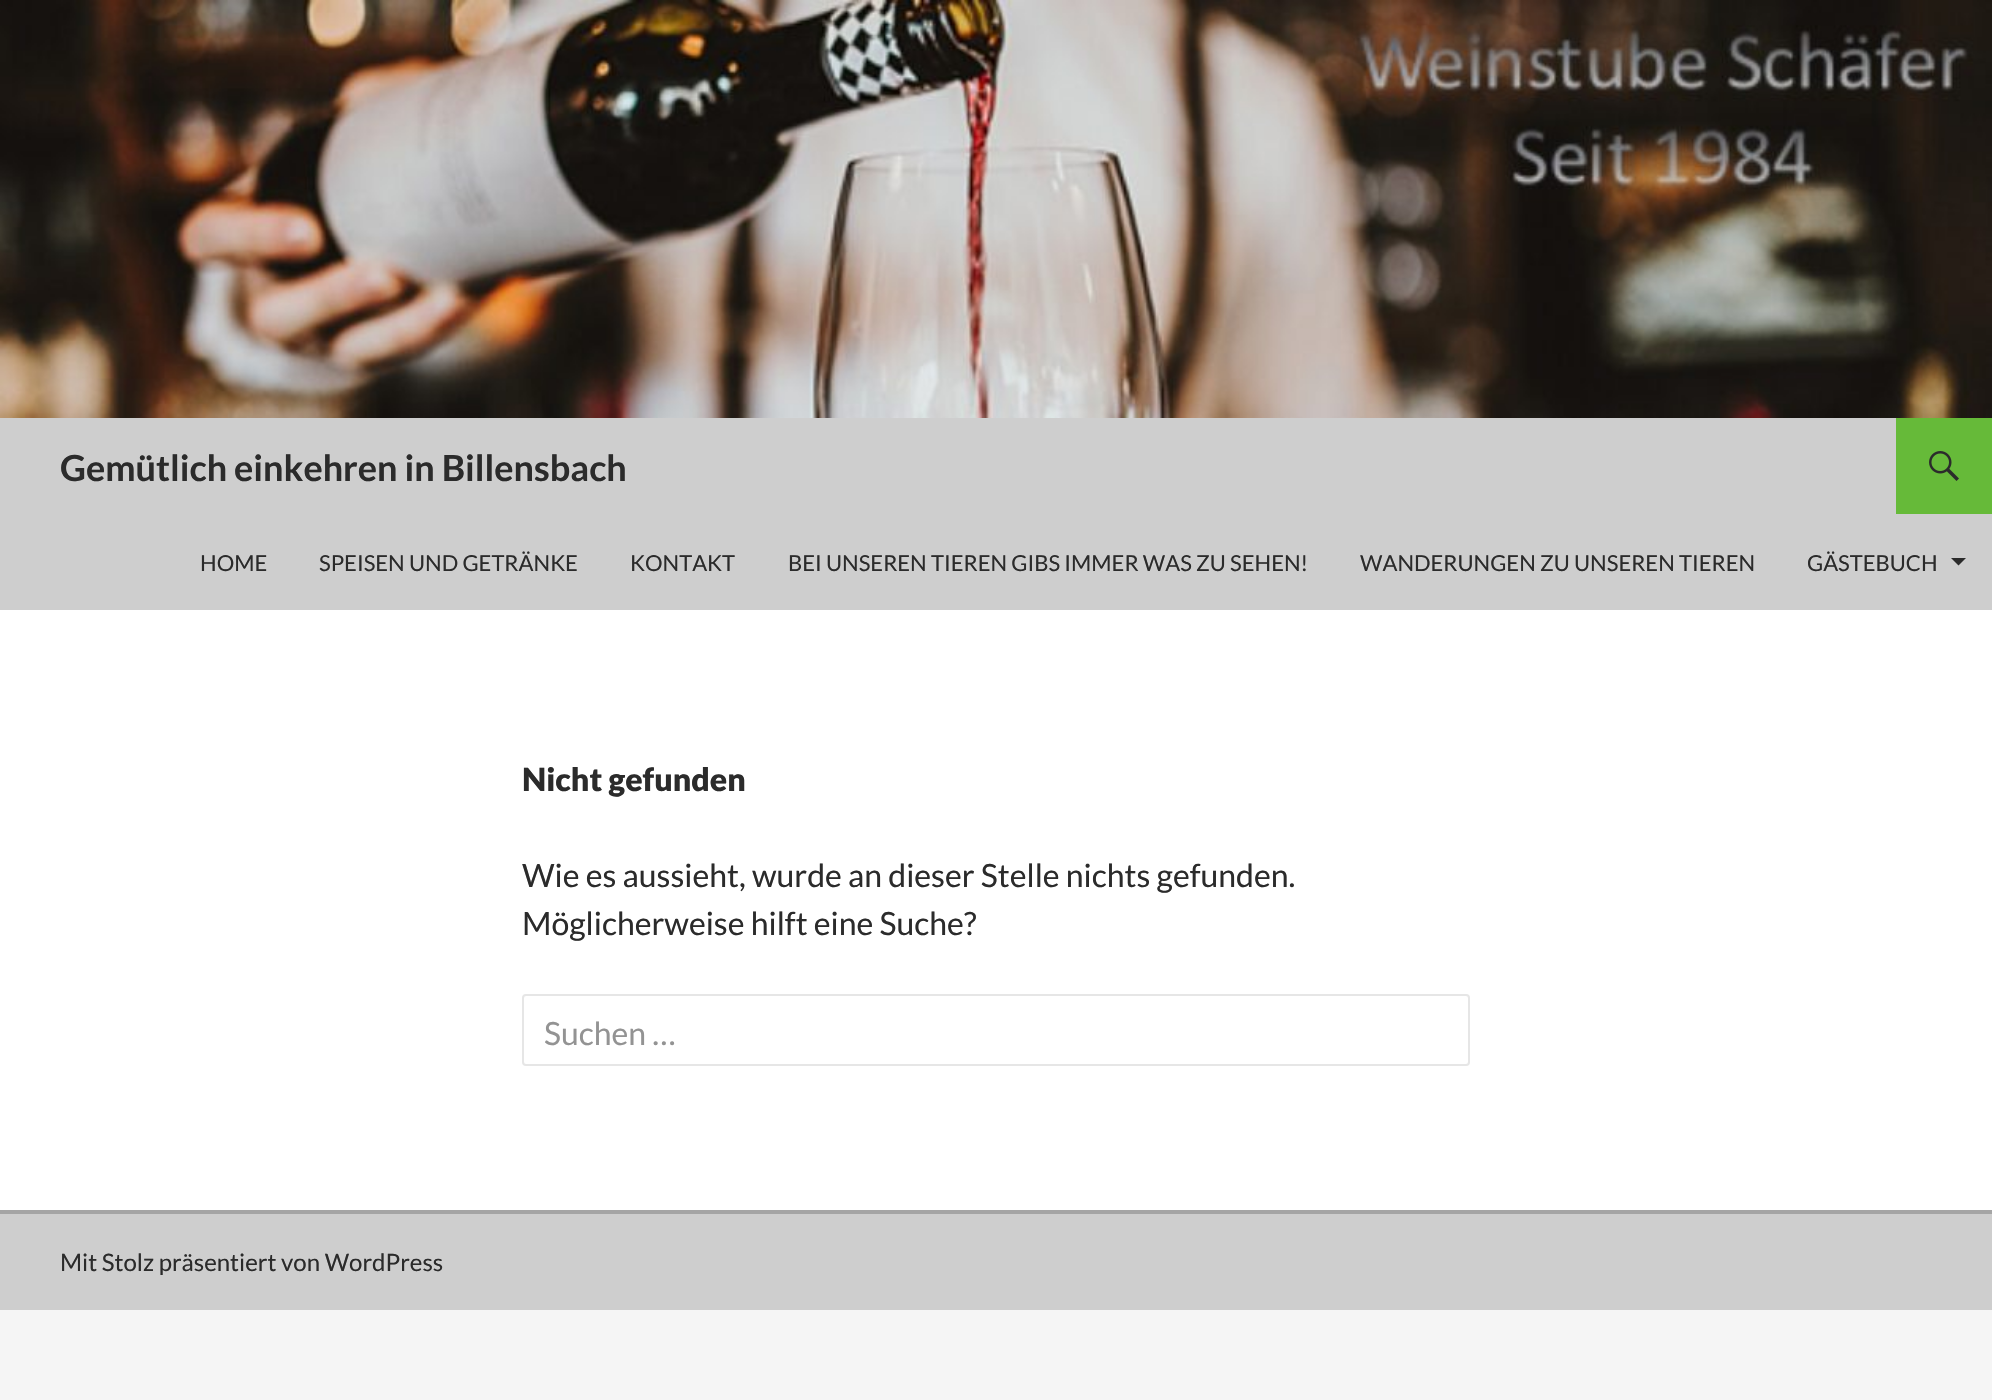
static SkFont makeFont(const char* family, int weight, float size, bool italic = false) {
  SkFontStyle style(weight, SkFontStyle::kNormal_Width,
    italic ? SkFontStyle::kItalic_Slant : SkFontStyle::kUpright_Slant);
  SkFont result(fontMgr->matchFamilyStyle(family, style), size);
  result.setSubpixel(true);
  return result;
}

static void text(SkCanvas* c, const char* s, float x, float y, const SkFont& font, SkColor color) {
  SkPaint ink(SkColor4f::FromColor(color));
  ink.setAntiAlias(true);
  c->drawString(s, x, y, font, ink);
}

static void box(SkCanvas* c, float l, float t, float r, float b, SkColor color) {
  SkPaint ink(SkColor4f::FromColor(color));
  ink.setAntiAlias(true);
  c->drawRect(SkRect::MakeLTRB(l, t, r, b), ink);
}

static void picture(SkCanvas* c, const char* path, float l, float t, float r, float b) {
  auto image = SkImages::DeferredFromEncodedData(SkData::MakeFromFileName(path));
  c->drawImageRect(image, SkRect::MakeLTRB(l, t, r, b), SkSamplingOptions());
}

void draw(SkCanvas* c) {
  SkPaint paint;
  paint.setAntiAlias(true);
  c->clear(0xfff5f5f5);
  box(c, 0, 610, 1992, 1210, 0xffffffff);
  picture(c, "img_01.png", 0, 0, 1992, 418);
  box(c, 0, 418, 1992, 610, 0xffcecece);
  SkFont face1 = makeFont("Lato", 700, 36);
  text(c, "Gemütlich einkehren in Billensbach", 60, 481, face1, 0xff2b2b2b);
  box(c, 1896, 418, 1992, 514, 0xff66ba39);
  picture(c, "img_02.png", 1929, 451, 1959, 481);
  SkFont face2 = makeFont("Lato", 400, 22);
  text(c, "HOME", 200, 571, face2, 0xff2b2b2b);
  text(c, "SPEISEN UND GETRÄNKE", 319, 571, face2, 0xff2b2b2b);
  text(c, "KONTAKT", 630, 571, face2, 0xff2b2b2b);
  text(c, "BEI UNSEREN TIEREN GIBS IMMER WAS ZU SEHEN!", 788, 571, face2, 0xff2b2b2b);
  text(c, "WANDERUNGEN ZU UNSEREN TIEREN", 1360, 571, face2, 0xff2b2b2b);
  text(c, "GÄSTEBUCH", 1807, 571, face2, 0xff2b2b2b);
  paint.setColor(0xff2b2b2b);
  c->drawPath(SkPathBuilder().moveTo(1951, 558).lineTo(1958.5f, 565.5f).lineTo(1966, 558).close().detach(), paint);
  SkFont face3 = makeFont("Lato", 900, 32);
  text(c, "Nicht gefunden", 522, 791, face3, 0xff2b2b2b);
  SkFont face4 = makeFont("Lato", 400, 32);
  text(c, "Wie es aussieht, wurde an dieser Stelle nichts gefunden.", 522, 887, face4, 0xff2b2b2b);
  text(c, "Möglicherweise hilft eine Suche?", 522, 935, face4, 0xff2b2b2b);
  paint.setStyle(SkPaint::kStroke_Style);
  paint.setStrokeWidth(2);
  paint.setColor(0xffe6e6e6);
  c->drawRoundRect(SkRect::MakeLTRB(523, 995, 1469, 1065), 3, 3, paint);
  text(c, "Suchen …", 544, 1045, face4, 0xff939393);
  box(c, 0, 1210, 1992, 1214, 0xffa5a5a5);
  box(c, 0, 1214, 1992, 1310, 0xffcecece);
  SkFont face5 = makeFont("Lato", 400, 24);
  text(c, "Mit Stolz präsentiert von WordPress", 60, 1271, face5, 0xff2b2b2b);
}
